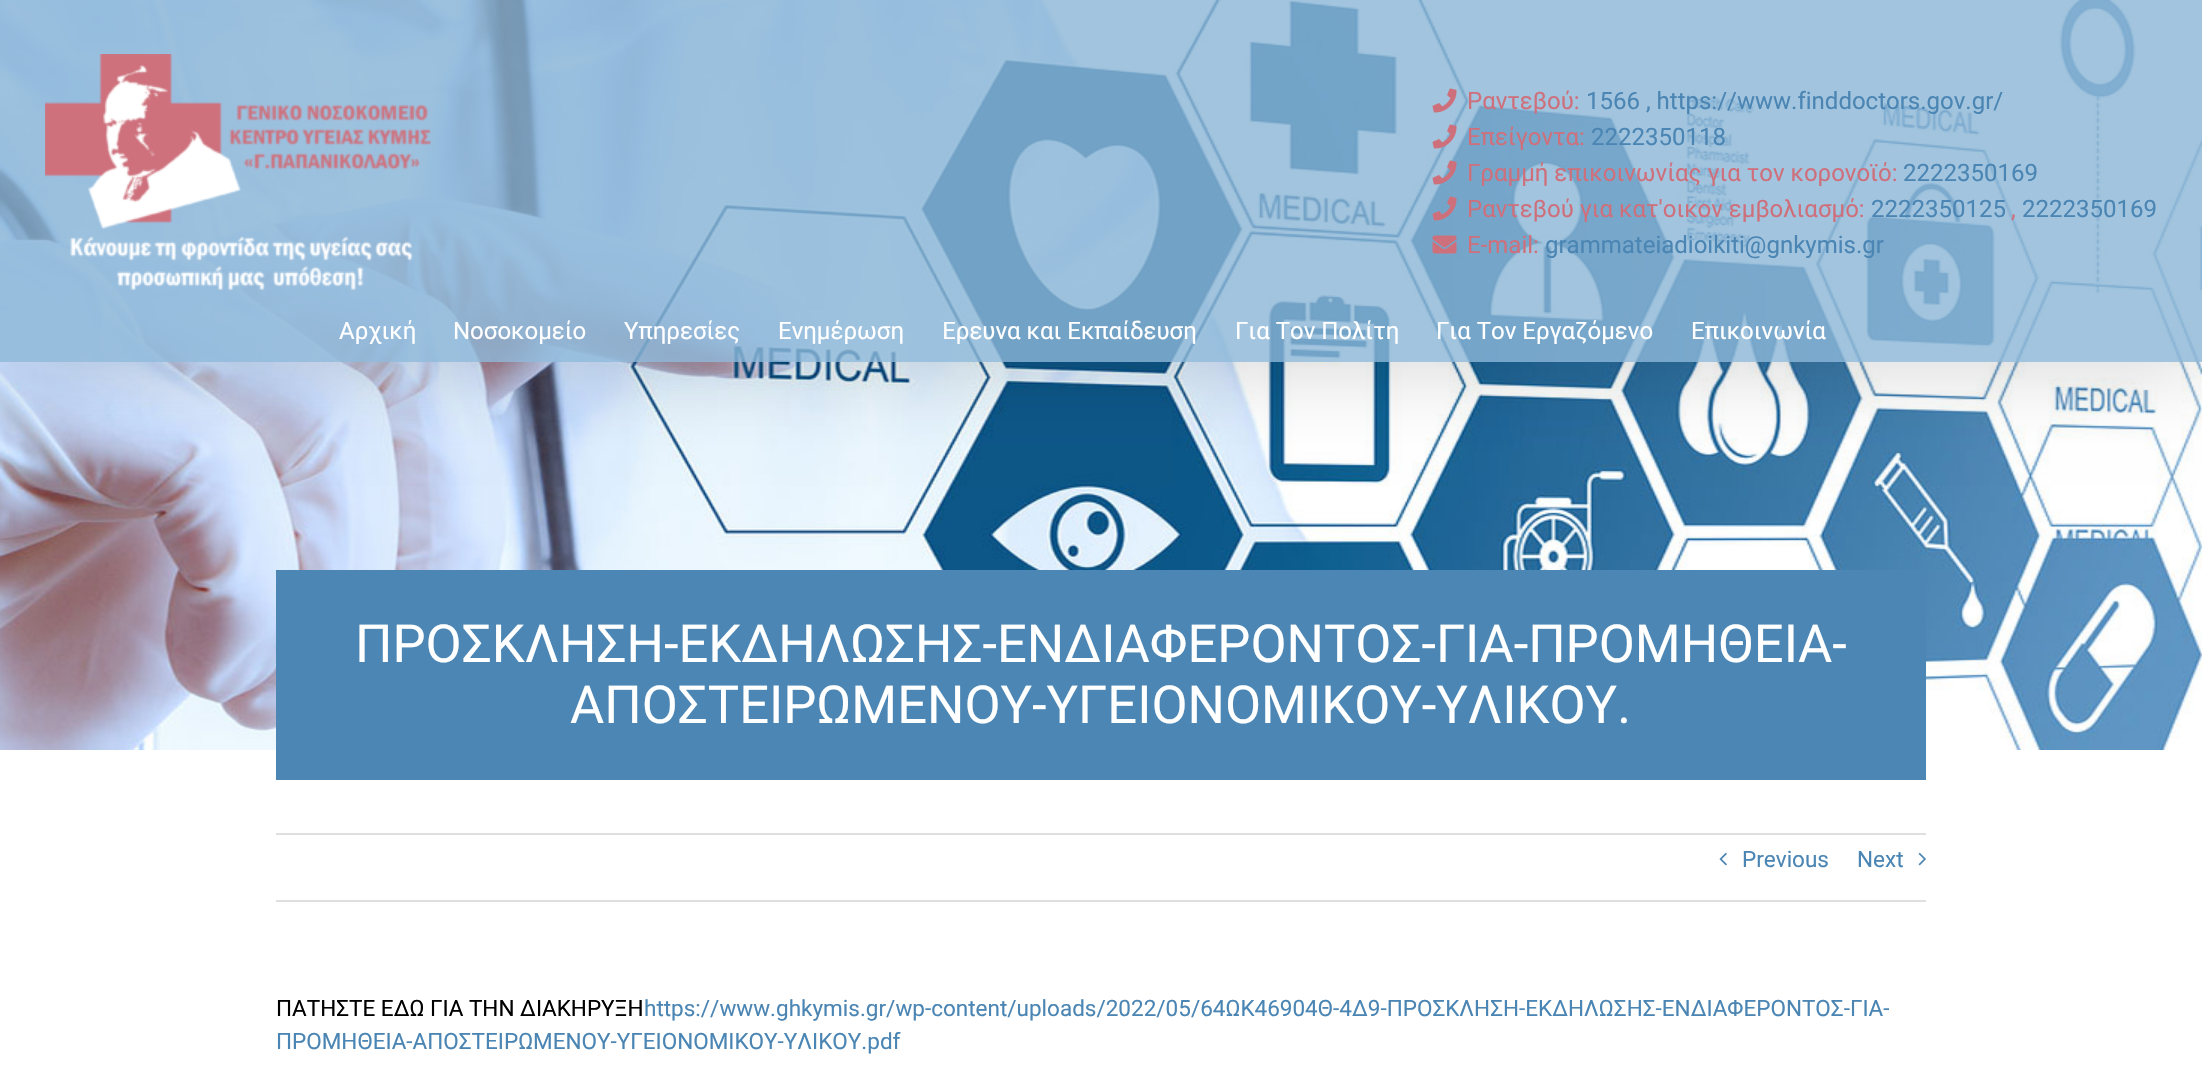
static SkFont makeFont(const char* family, int weight, float size, bool italic = false) {
  SkFontStyle style(weight, SkFontStyle::kNormal_Width,
    italic ? SkFontStyle::kItalic_Slant : SkFontStyle::kUpright_Slant);
  SkFont result(fontMgr->matchFamilyStyle(family, style), size);
  result.setSubpixel(true);
  return result;
}

static void text(SkCanvas* c, const char* s, float x, float y, const SkFont& font, SkColor color) {
  SkPaint ink(SkColor4f::FromColor(color));
  ink.setAntiAlias(true);
  c->drawString(s, x, y, font, ink);
}

static void box(SkCanvas* c, float l, float t, float r, float b, SkColor color) {
  SkPaint ink(SkColor4f::FromColor(color));
  ink.setAntiAlias(true);
  c->drawRect(SkRect::MakeLTRB(l, t, r, b), ink);
}

static void picture(SkCanvas* c, const char* path, float l, float t, float r, float b) {
  auto image = SkImages::DeferredFromEncodedData(SkData::MakeFromFileName(path));
  c->drawImageRect(image, SkRect::MakeLTRB(l, t, r, b), SkSamplingOptions());
}

void draw(SkCanvas* c) {
  SkPaint paint;
  paint.setAntiAlias(true);
  c->clear(0xffffffff);
  picture(c, "img_07.png", 0, 0, 2202, 750);
  c->save();
  c->clipPath(SkPathBuilder(SkPathFillType::kEvenOdd).moveTo(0, 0).lineTo(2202, 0).lineTo(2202, 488).lineTo(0, 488).close().moveTo(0, 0).lineTo(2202, 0).lineTo(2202, 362).lineTo(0, 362).close().detach(), true);
  paint.setColor(0x24000000);
  paint.setMaskFilter(SkMaskFilter::MakeBlur(kNormal_SkBlurStyle, 37.5f));
  c->drawRect(SkRect::MakeLTRB(3, 18, 2199, 374), paint);
  paint.setMaskFilter(nullptr);
  c->restore();
  box(c, 0, 0, 2202, 302, 0xcc8bb5d6);
  picture(c, "img_01.png", 45, 54, 431, 291);
  picture(c, "img_02.png", 1432, 88, 1457, 113);
  SkFont face1 = makeFont("Roboto", 400, 24);
  text(c, "Ραντεβού:", 1467, 109, face1, 0xffce707c);
  text(c, "1566 , https://www.finddoctors.gov.gr/", 1586, 109, face1, 0xff4a85b3);
  picture(c, "img_03.png", 1432, 124, 1457, 149);
  text(c, "Επείγοντα:", 1467, 145, face1, 0xffce707c);
  text(c, "2222350118", 1591, 145, face1, 0xff4a85b3);
  picture(c, "img_04.png", 1432, 160, 1457, 185);
  text(c, "Γραμμή επικοινωνίας για τον κορονοϊό:", 1467, 181, face1, 0xffce707c);
  text(c, "2222350169", 1903, 181, face1, 0xff4a85b3);
  picture(c, "img_05.png", 1432, 196, 1457, 221);
  text(c, "Ραντεβού για κατ'οικον εμβολιασμό:", 1467, 217, face1, 0xffce707c);
  text(c, "2222350125", 1871, 217, face1, 0xff4a85b3);
  text(c, ",", 2011, 217, face1, 0xffce707c);
  text(c, "2222350169", 2022, 217, face1, 0xff4a85b3);
  picture(c, "img_06.png", 1432, 235, 1457, 254);
  text(c, "E-mail:", 1467, 253, face1, 0xffce707c);
  text(c, "grammateiadioikiti@gnkymis.gr", 1545, 253, face1, 0xff4a85b3);
  box(c, 0, 302, 2202, 362, 0xcc8bb5d6);
  text(c, "Αρχική", 339, 339, face1, 0xffffffff);
  text(c, "Νοσοκομείο", 453, 339, face1, 0xffffffff);
  text(c, "Υπηρεσίες", 624, 339, face1, 0xffffffff);
  text(c, "Ενημέρωση", 778, 339, face1, 0xffffffff);
  c->save();
  c->clipRect(SkRect::MakeLTRB(942, 302, 1235, 362));
  text(c, "Έρευνα και Εκπαίδευση", 941, 339, face1, 0xffffffff);
  c->restore();
  text(c, "Για Τον Πολίτη", 1235, 339, face1, 0xffffffff);
  text(c, "Για Τον Εργαζόμενο", 1436, 339, face1, 0xffffffff);
  text(c, "Επικοινωνία", 1691, 339, face1, 0xffffffff);
  box(c, 276, 570, 1926, 780, 0xff4b86b4);
  SkFont face2 = makeFont("Roboto", 400, 52.5f);
  text(c, "ΠΡΟΣΚΛΗΣΗ-ΕΚΔΗΛΩΣΗΣ-ΕΝΔΙΑΦΕΡΟΝΤΟΣ-ΓΙΑ-ΠΡΟΜΗΘΕΙΑ-", 355, 662, face2, 0xffffffff);
  text(c, "ΑΠΟΣΤΕΙΡΩΜΕΝΟΥ-ΥΓΕΙΟΝΟΜΙΚΟΥ-ΥΛΙΚΟΥ.", 570, 723, face2, 0xffffffff);
  box(c, 276, 833, 1926, 835, 0xffe0dede);
  box(c, 276, 900, 1926, 902, 0xffe0dede);
  picture(c, "img_08.png", 1719, 852, 1727, 866);
  SkFont face3 = makeFont("Roboto", 400, 22.5f);
  text(c, "Previous", 1742, 867, face3, 0xff4a85b3);
  text(c, "Next", 1857, 867, face3, 0xff4a85b3);
  picture(c, "img_09.png", 1918, 852, 1926, 866);
  text(c, "ΠΑΤΗΣΤΕ ΕΔΩ ΓΙΑ ΤΗΝ ΔΙΑΚΗΡΥΞΗ", 276, 1016, face3, 0xff000000);
  text(c, "https://www.ghkymis.gr/wp-content/uploads/2022/05/64ΩΚ46904Θ-4Δ9-ΠΡΟΣΚΛΗΣΗ-ΕΚΔΗΛΩΣΗΣ-ΕΝΔΙΑΦΕΡΟΝΤΟΣ-ΓΙΑ-", 644, 1016, face3, 0xff4a85b3);
  text(c, "ΠΡΟΜΗΘΕΙΑ-ΑΠΟΣΤΕΙΡΩΜΕΝΟΥ-ΥΓΕΙΟΝΟΜΙΚΟΥ-ΥΛΙΚΟΥ.pdf", 276, 1049, face3, 0xff4a85b3);
}
